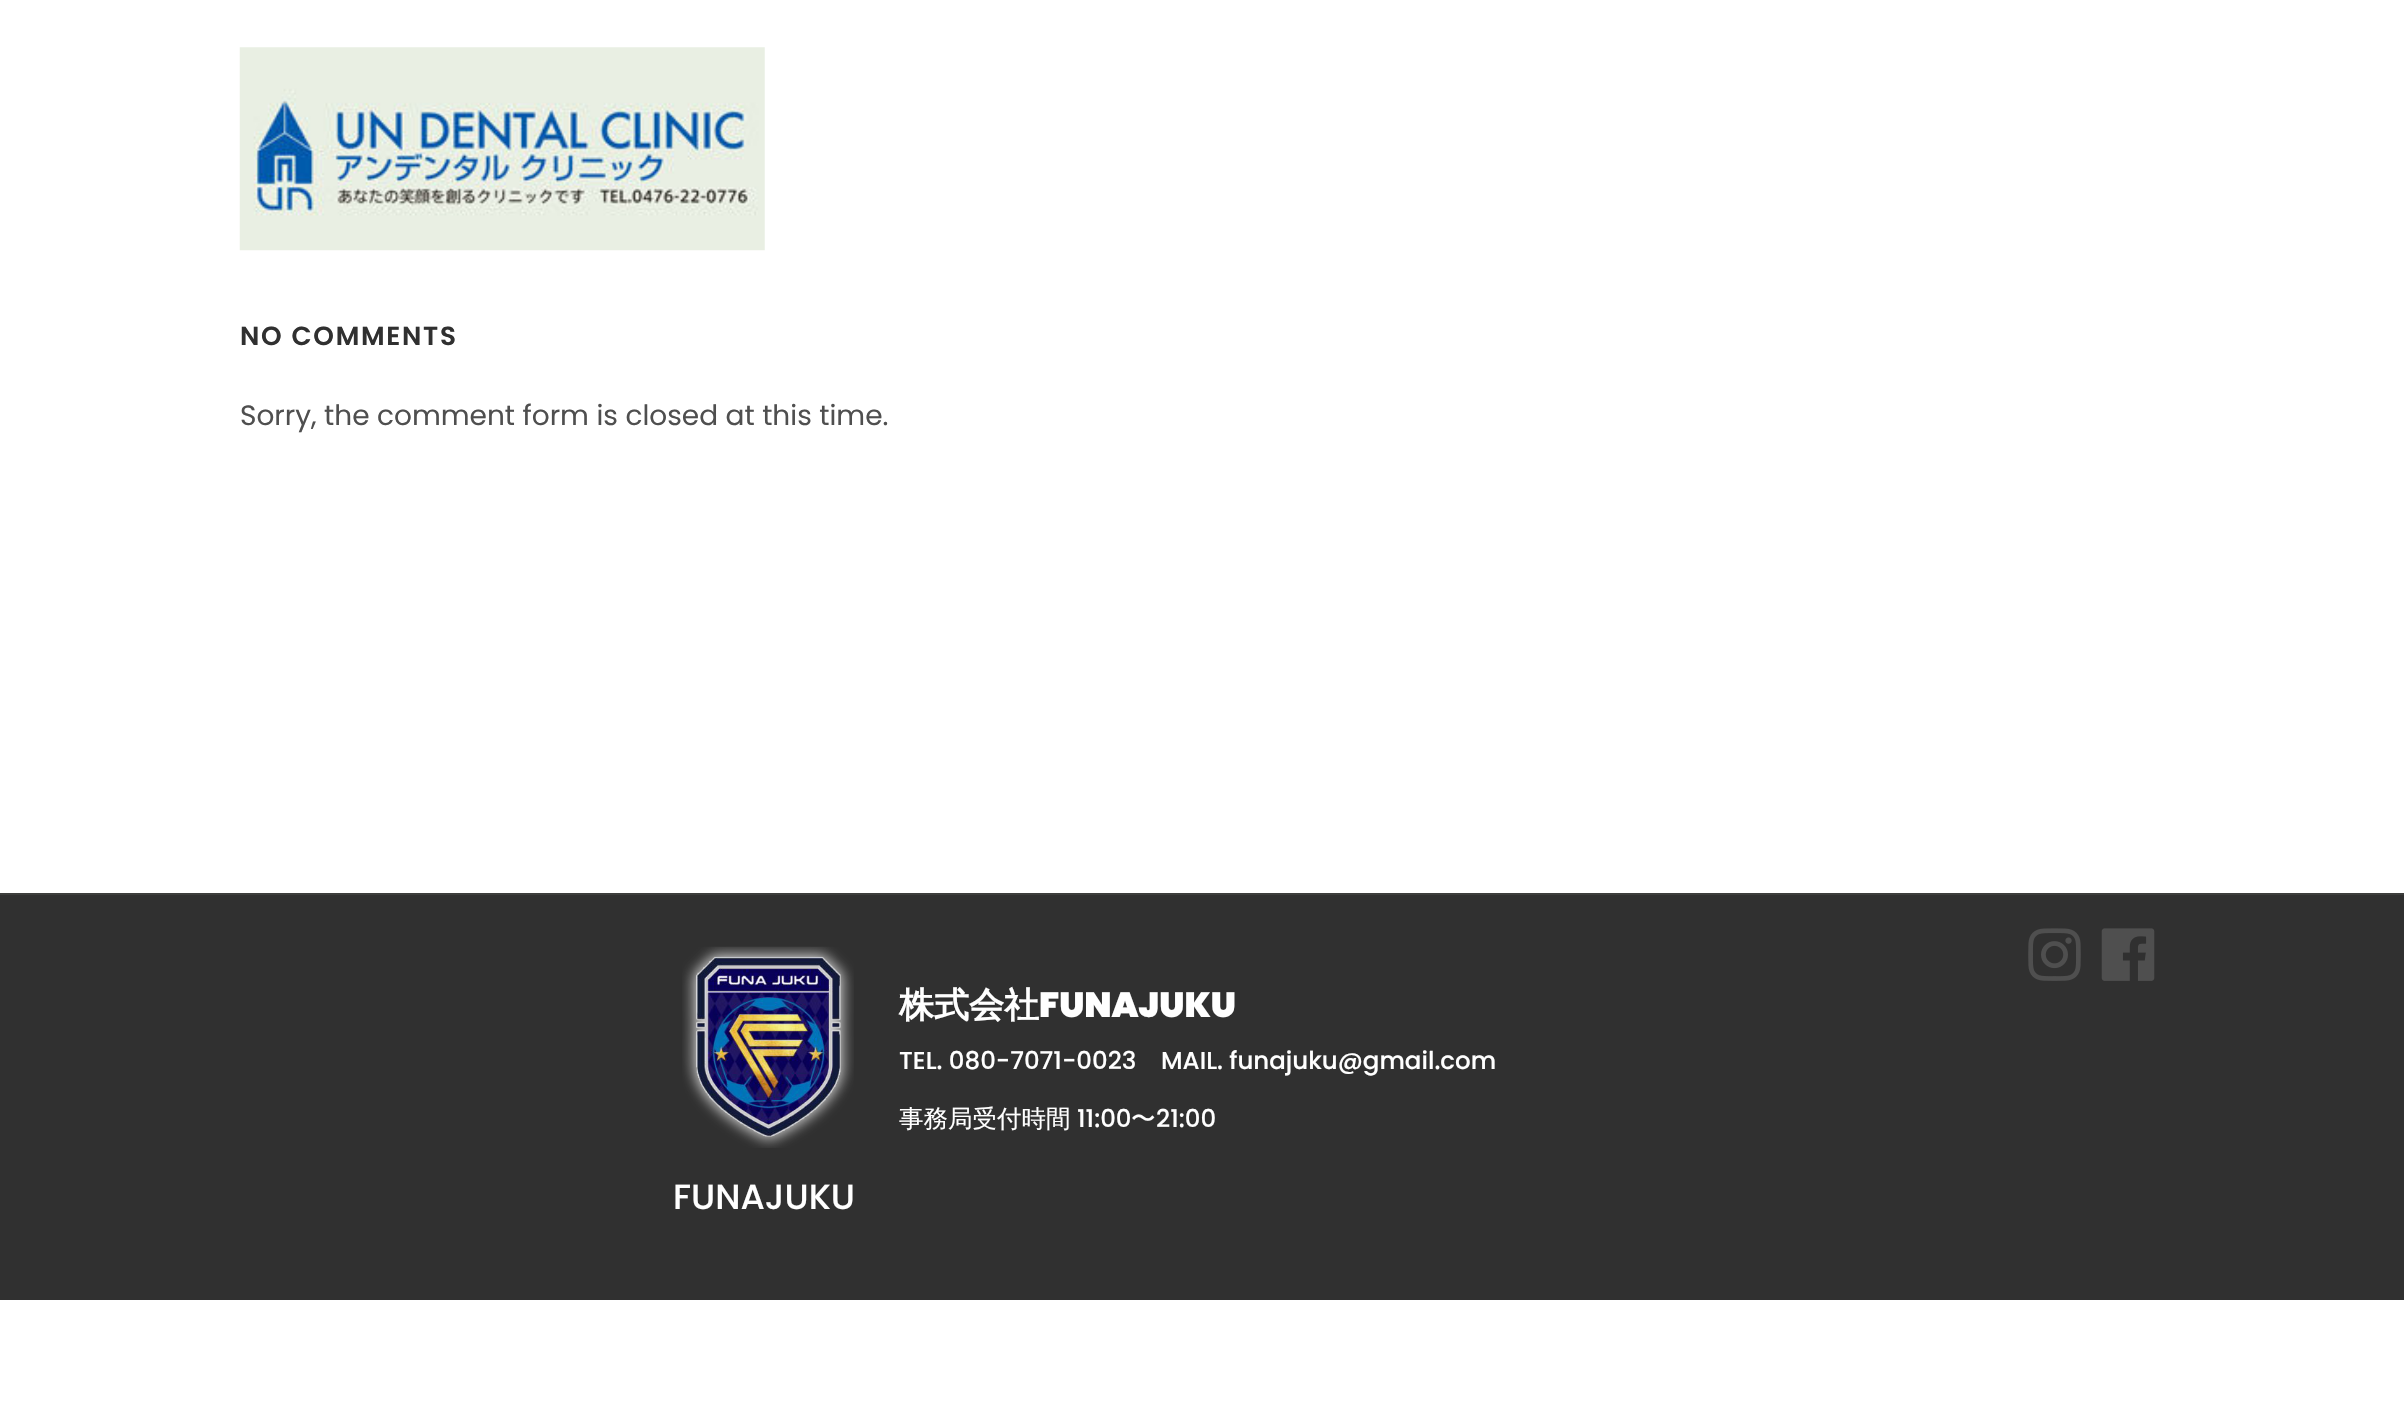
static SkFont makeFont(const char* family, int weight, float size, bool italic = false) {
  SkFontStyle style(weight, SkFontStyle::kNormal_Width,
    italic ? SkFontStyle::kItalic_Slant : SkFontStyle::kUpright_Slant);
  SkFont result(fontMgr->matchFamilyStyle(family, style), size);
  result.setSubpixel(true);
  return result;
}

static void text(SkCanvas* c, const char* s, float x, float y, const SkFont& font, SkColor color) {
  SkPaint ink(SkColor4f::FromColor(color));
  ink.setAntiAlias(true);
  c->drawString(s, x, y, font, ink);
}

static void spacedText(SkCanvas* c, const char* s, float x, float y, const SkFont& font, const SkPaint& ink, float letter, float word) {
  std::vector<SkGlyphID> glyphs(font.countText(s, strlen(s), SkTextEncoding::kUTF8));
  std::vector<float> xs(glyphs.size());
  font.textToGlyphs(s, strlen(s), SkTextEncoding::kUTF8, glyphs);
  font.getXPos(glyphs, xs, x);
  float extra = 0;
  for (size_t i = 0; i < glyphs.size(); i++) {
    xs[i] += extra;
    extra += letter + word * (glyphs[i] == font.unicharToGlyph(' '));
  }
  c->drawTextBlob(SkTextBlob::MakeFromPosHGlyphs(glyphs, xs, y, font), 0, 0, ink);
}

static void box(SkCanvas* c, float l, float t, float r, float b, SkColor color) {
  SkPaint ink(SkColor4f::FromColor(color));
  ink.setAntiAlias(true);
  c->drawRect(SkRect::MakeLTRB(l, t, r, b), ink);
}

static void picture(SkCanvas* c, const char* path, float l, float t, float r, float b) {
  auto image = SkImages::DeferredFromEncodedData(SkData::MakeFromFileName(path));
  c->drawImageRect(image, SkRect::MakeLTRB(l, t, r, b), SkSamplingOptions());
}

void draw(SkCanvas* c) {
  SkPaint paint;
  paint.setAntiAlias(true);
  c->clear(0xffffffff);
  picture(c, "img_01.png", 239, 47, 765, 251);
  SkFont face1 = makeFont("Poppins", 600, 26.25f);
  paint.setColor(0xff303030);
  spacedText(c, "NO COMMENTS", 240, 345, face1, paint, 1.75f, 0);
  SkFont face2 = makeFont("Poppins", 400, 28);
  text(c, "Sorry, the comment form is closed at this time.", 240, 425, face2, 0xff4f4f4f);
  box(c, 0, 895, 2404, 1300, 0xff303030);
  box(c, 0, 893, 2404, 895, 0xff3d3e3c);
  picture(c, "img_02.png", 2028, 928, 2081, 981);
  picture(c, "img_03.png", 2101, 928, 2155, 981);
  SkFont face3 = makeFont("WenQuanYi Zen Hei", 700, 35);
  text(c, "株式会社", 899, 1017, face3, 0xffffffff);
  SkFont face4 = makeFont("Poppins", 900, 35);
  text(c, "FUNAJUKU", 1039, 1017, face4, 0xffffffff);
  SkFont face5 = makeFont("Poppins", 500, 24.5f);
  text(c, "TEL. 080-7071-0023", 899, 1069, face5, 0xffffffff);
  text(c, "MAIL. funajuku@gmail.com", 1161, 1069, face5, 0xffffffff);
  SkFont face6 = makeFont("WenQuanYi Zen Hei", 500, 24.5f);
  text(c, "事務局受付時間", 899, 1127, face6, 0xffffffff);
  text(c, "11:00", 1077, 1127, face5, 0xffffffff);
  text(c, "〜", 1131, 1127, face6, 0xffffffff);
  text(c, "21:00", 1156, 1127, face5, 0xffffffff);
  picture(c, "img_04.png", 682, 946, 854, 1148);
  SkFont face7 = makeFont("Poppins", 500, 35);
  text(c, "FUNAJUKU", 673, 1209, face7, 0xffffffff);
}
